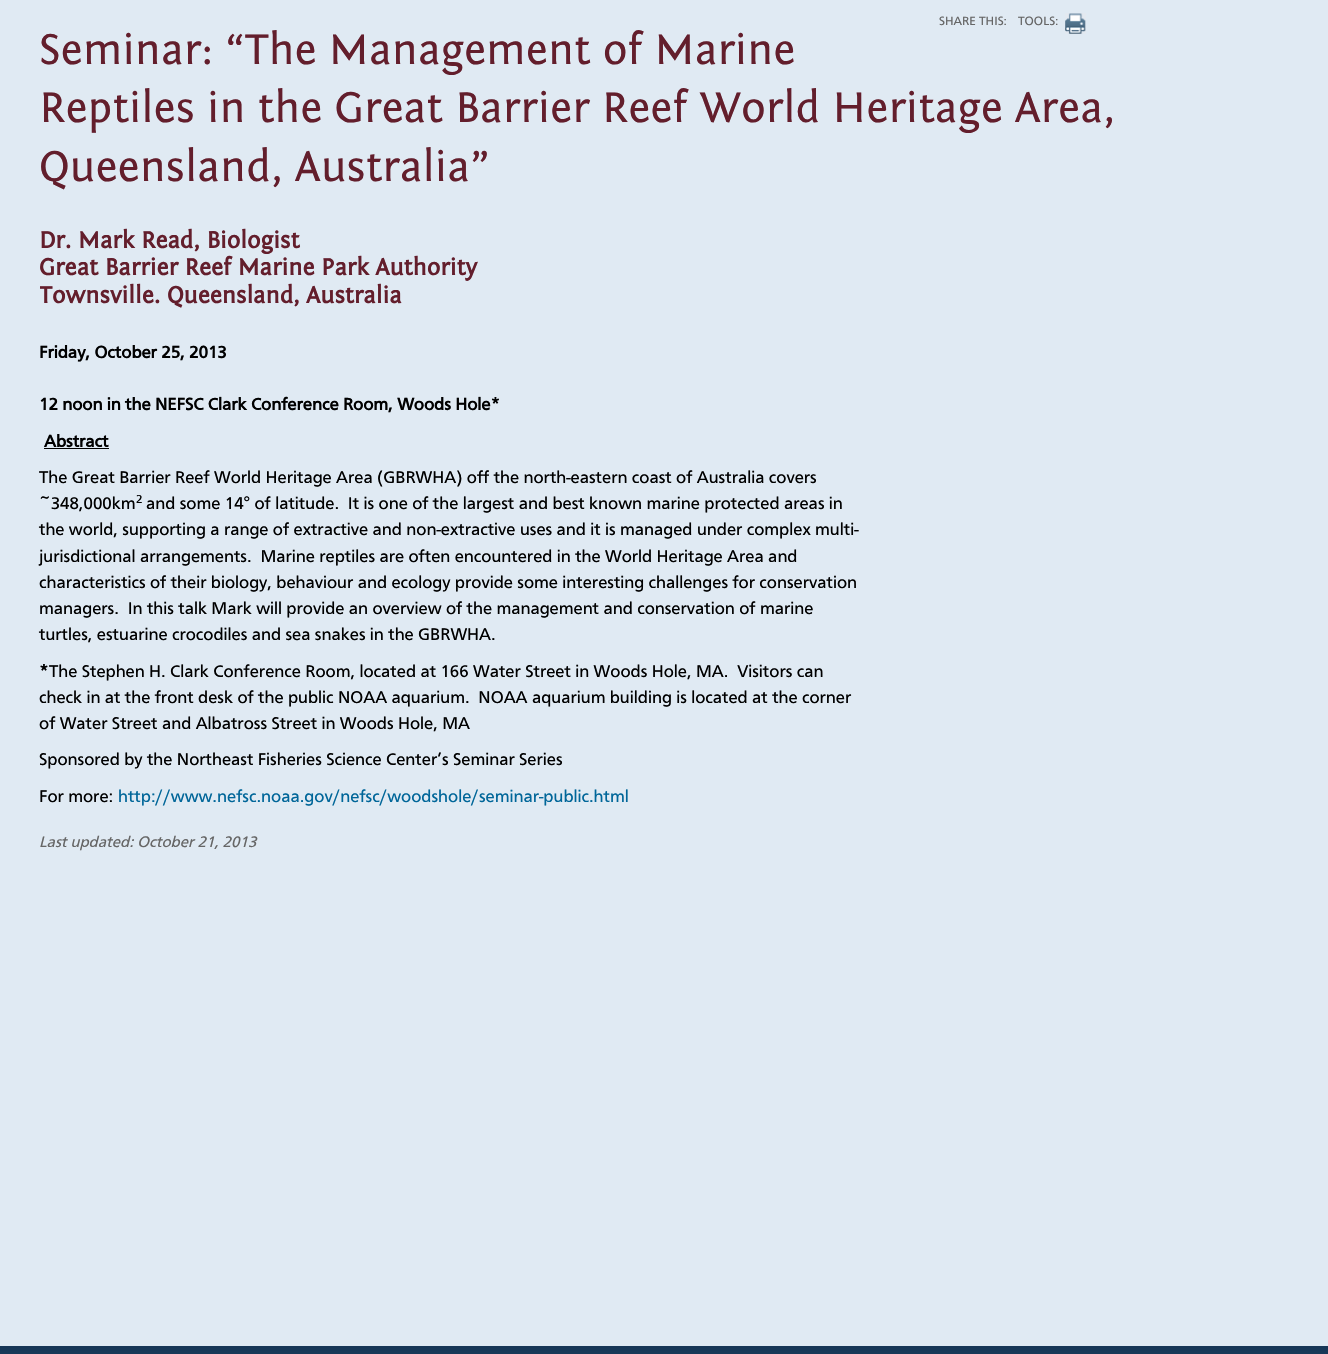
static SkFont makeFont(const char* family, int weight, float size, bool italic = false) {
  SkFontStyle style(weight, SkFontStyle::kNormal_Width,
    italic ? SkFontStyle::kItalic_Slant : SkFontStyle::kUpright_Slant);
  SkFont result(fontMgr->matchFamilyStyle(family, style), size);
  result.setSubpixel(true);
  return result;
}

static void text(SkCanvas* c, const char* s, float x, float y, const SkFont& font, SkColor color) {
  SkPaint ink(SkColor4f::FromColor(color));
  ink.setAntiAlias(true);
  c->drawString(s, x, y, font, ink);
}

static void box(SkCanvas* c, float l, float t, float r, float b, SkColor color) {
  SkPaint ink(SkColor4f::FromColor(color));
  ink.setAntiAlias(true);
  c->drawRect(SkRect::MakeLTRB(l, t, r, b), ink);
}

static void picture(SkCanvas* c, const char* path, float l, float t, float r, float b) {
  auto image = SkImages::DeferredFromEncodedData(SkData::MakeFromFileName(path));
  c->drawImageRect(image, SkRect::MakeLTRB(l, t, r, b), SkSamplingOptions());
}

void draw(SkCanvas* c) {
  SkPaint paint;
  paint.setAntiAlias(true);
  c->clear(0xffe0eaf3);
  SkFont face1 = makeFont("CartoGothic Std", 400, 12.5f);
  text(c, "SHARE THIS:", 939, 25, face1, 0xff666666);
  text(c, "TOOLS:", 1018, 25, face1, 0xff666666);
  picture(c, "img_01.png", 1065, 13, 1086, 34);
  SkFont face2 = makeFont("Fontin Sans", 400, 45);
  text(c, "Seminar: “The Management of Marine", 39, 64, face2, 0xff631e2c);
  text(c, "Reptiles in the Great Barrier Reef World Heritage Area,", 39, 122, face2, 0xff631e2c);
  text(c, "Queensland, Australia”", 39, 181, face2, 0xff631e2c);
  SkFont face3 = makeFont("Fontin Sans", 700, 24.5f);
  text(c, "Dr. Mark Read, Biologist", 39, 248, face3, 0xff631e2c);
  text(c, "Great Barrier Reef Marine Park Authority", 39, 275, face3, 0xff631e2c);
  c->save();
  c->clipRect(SkRect::MakeLTRB(40, 0, 1290, 1005));
  text(c, "Townsville. Queensland, Australia", 39, 303, face3, 0xff631e2c);
  c->restore();
  SkFont face4 = makeFont("CartoGothic Std", 700, 17.5f);
  text(c, "Friday, October 25, 2013", 39, 358, face4, 0xff000000);
  text(c, "12 noon in the NEFSC Clark Conference Room, Woods Hole*", 39, 410, face4, 0xff000000);
  text(c, "Abstract", 44, 447, face4, 0xff000000);
  box(c, 44, 448, 109, 449, 0xff000000);
  SkFont face5 = makeFont("CartoGothic Std", 400, 17.5f);
  text(c, "The Great Barrier Reef World Heritage Area (GBRWHA) off the north-eastern coast of Australia covers", 39, 483, face5, 0xff000000);
  text(c, "~348,000km", 39, 509, face5, 0xff000000);
  SkFont face6 = makeFont("CartoGothic Std", 400, 12);
  text(c, "2", 136, 503, face6, 0xff000000);
  text(c, "and some 14° of latitude.  It is one of the largest and best known marine protected areas in", 146, 509, face5, 0xff000000);
  text(c, "the world, supporting a range of extractive and non-extractive uses and it is managed under complex multi-", 39, 535, face5, 0xff000000);
  text(c, "jurisdictional arrangements.  Marine reptiles are often encountered in the World Heritage Area and", 39, 562, face5, 0xff000000);
  text(c, "characteristics of their biology, behaviour and ecology provide some interesting challenges for conservation", 39, 588, face5, 0xff000000);
  text(c, "managers.  In this talk Mark will provide an overview of the management and conservation of marine", 39, 614, face5, 0xff000000);
  text(c, "turtles, estuarine crocodiles and sea snakes in the GBRWHA.", 39, 640, face5, 0xff000000);
  text(c, "*", 39, 677, face4, 0xff000000);
  text(c, "The Stephen H. Clark Conference Room, located at 166 Water Street in Woods Hole, MA.  Visitors can", 49, 677, face5, 0xff000000);
  text(c, "check in at the front desk of the public NOAA aquarium.  NOAA aquarium building is located at the corner", 39, 703, face5, 0xff000000);
  text(c, "of Water Street and Albatross Street in Woods Hole, MA", 39, 729, face5, 0xff000000);
  text(c, "Sponsored by the Northeast Fisheries Science Center’s Seminar Series", 39, 765, face5, 0xff000000);
  text(c, "For more:", 39, 802, face5, 0xff000000);
  text(c, "http://www.nefsc.noaa.gov/nefsc/woodshole/seminar-public.html", 118, 802, face5, 0xff006699);
  SkFont face7 = makeFont("CartoGothic Std", 400, 15.75f, true);
  text(c, "Last updated: October 21, 2013", 39, 847, face7, 0xff666666);
  {
    const SkColor colors[] = {0xff173656, 0xff27668f};
    const float stops[] = {0, 1};
    const SkPoint ends[] = {{664, 1346}, {664, 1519}};
    paint.setShader(SkGradientShader::MakeLinear(ends, colors, stops, 2, SkTileMode::kClamp));
    paint.setAlpha(255);
  }
  c->drawRect(SkRect::MakeLTRB(0, 1346, 1328, 1354), paint);
}
